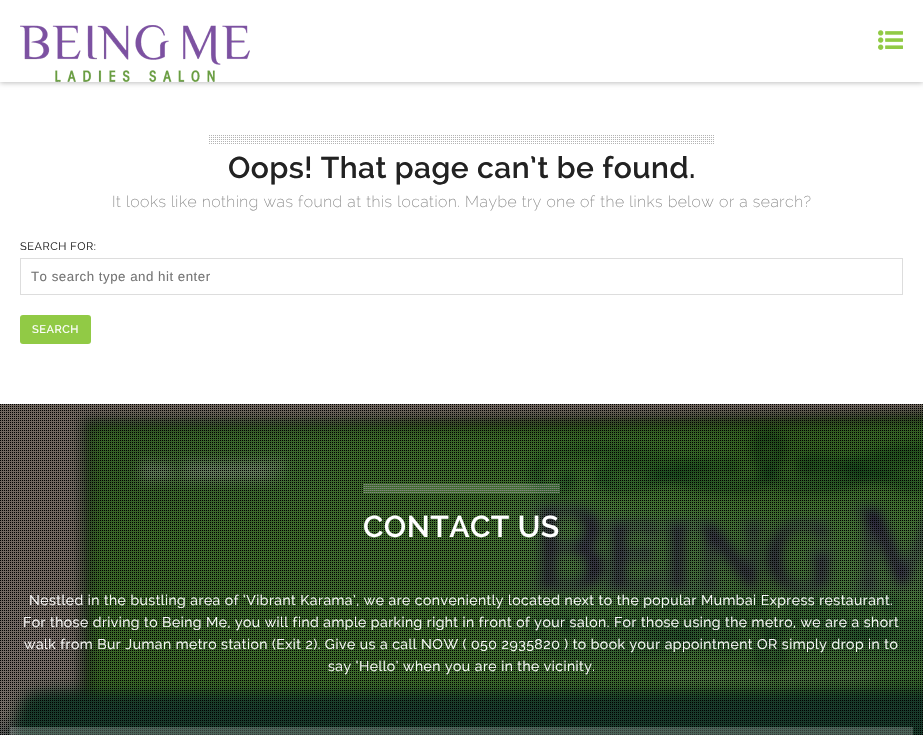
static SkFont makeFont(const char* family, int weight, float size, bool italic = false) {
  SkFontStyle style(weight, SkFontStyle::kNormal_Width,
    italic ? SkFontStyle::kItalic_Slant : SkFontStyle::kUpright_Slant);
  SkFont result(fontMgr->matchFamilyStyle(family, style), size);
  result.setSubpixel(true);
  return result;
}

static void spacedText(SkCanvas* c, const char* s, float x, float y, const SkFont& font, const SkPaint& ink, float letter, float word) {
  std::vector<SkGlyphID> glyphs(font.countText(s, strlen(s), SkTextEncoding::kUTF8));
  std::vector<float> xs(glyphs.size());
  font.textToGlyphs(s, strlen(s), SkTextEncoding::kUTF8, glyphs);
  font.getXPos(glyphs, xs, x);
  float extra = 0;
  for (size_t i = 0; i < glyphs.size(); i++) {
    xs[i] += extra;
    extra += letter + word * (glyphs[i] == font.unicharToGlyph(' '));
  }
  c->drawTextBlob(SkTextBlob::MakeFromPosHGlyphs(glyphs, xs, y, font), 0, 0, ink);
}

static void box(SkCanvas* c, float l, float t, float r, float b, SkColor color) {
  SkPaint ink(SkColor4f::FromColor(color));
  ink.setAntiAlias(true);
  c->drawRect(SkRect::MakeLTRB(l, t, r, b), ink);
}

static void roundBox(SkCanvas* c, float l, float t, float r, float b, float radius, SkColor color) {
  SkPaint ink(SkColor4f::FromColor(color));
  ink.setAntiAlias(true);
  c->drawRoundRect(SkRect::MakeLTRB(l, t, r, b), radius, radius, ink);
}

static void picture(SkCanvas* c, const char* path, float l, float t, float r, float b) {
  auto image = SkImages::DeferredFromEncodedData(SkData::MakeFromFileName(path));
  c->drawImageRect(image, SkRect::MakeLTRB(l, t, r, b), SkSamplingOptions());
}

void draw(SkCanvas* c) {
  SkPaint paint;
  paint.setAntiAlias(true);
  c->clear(0xffffffff);
  paint.setColor(0x40000000);
  paint.setMaskFilter(SkMaskFilter::MakeBlur(kNormal_SkBlurStyle, 2.5f));
  c->drawRect(SkRect::MakeLTRB(0, 1, 923, 83), paint);
  paint.setMaskFilter(nullptr);
  box(c, 0, 0, 923, 82, 0xffffffff);
  picture(c, "img_01.png", 20, 25, 250, 82);
  picture(c, "img_02.png", 878, 30, 903, 50);
  picture(c, "img_03.png", 209, 135, 714, 144);
  SkFont face1 = makeFont("Raleway", 600, 30);
  paint.setColor(0xff222222);
  spacedText(c, "Oops! That page can’t be found.", 228, 178, face1, paint, 0.5f, 0);
  SkFont face2 = makeFont("Raleway", 200, 15.75f);
  paint.setColor(0xff888888);
  spacedText(c, "It looks like nothing was found at this location. Maybe try one of the links below or a search?", 112, 207, face2, paint, 0.5f, 0);
  SkFont face3 = makeFont("Raleway", 400, 11);
  paint.setColor(0xff222222);
  spacedText(c, "SEARCH FOR:", 20, 250, face3, paint, 0.5f, 0);
  paint.setStyle(SkPaint::kStroke_Style);
  paint.setStrokeWidth(1);
  paint.setColor(0xffdddddd);
  c->drawRect(SkRect::MakeLTRB(20.5f, 258.5f, 902.5f, 294.5f), paint);
  SkFont face4 = makeFont("Liberation Sans", 400, 13.3f);
  paint.setStyle(SkPaint::kFill_Style);
  paint.setColor(0xff757575);
  spacedText(c, "To search type and hit enter", 31, 281, face4, paint, 0.5f, 0);
  roundBox(c, 20, 315, 91, 344, 3, 0xff91ca45);
  SkFont face5 = makeFont("Raleway", 500, 11);
  paint.setColor(0xffffffff);
  spacedText(c, "SEARCH", 32, 333, face5, paint, 0.5f, 0);
  picture(c, "img_04.png", 0, 404, 923, 735);
  picture(c, "img_05.png", 0, 404, 923, 735);
  picture(c, "img_06.png", 363, 484, 560, 493);
  spacedText(c, "CONTACT US", 363, 537, face1, paint, 0.5f, 0);
  SkFont face6 = makeFont("Raleway", 400, 14);
  spacedText(c, "Nestled in the bustling area of ‘Vibrant Karama’, we are conveniently located next to the popular Mumbai Express restaurant.", 29, 605, face6, paint, 0.5f, 0);
  spacedText(c, "For those driving to Being Me, you will find ample parking right in front of your salon. For those using the metro, we are a short", 23, 627, face6, paint, 0.5f, 0);
  spacedText(c, "walk from Bur Juman metro station (Exit 2). Give us a call NOW ( 050 2935820 ) to book your appointment OR simply drop in to", 24, 649, face6, paint, 0.5f, 0);
  spacedText(c, "say ‘Hello’ when you are in the vicinity.", 328, 671, face6, paint, 0.5f, 0);
  box(c, 10, 727, 462, 735, 0x36ffffff);
  box(c, 462, 727, 913, 735, 0x36ffffff);
}
